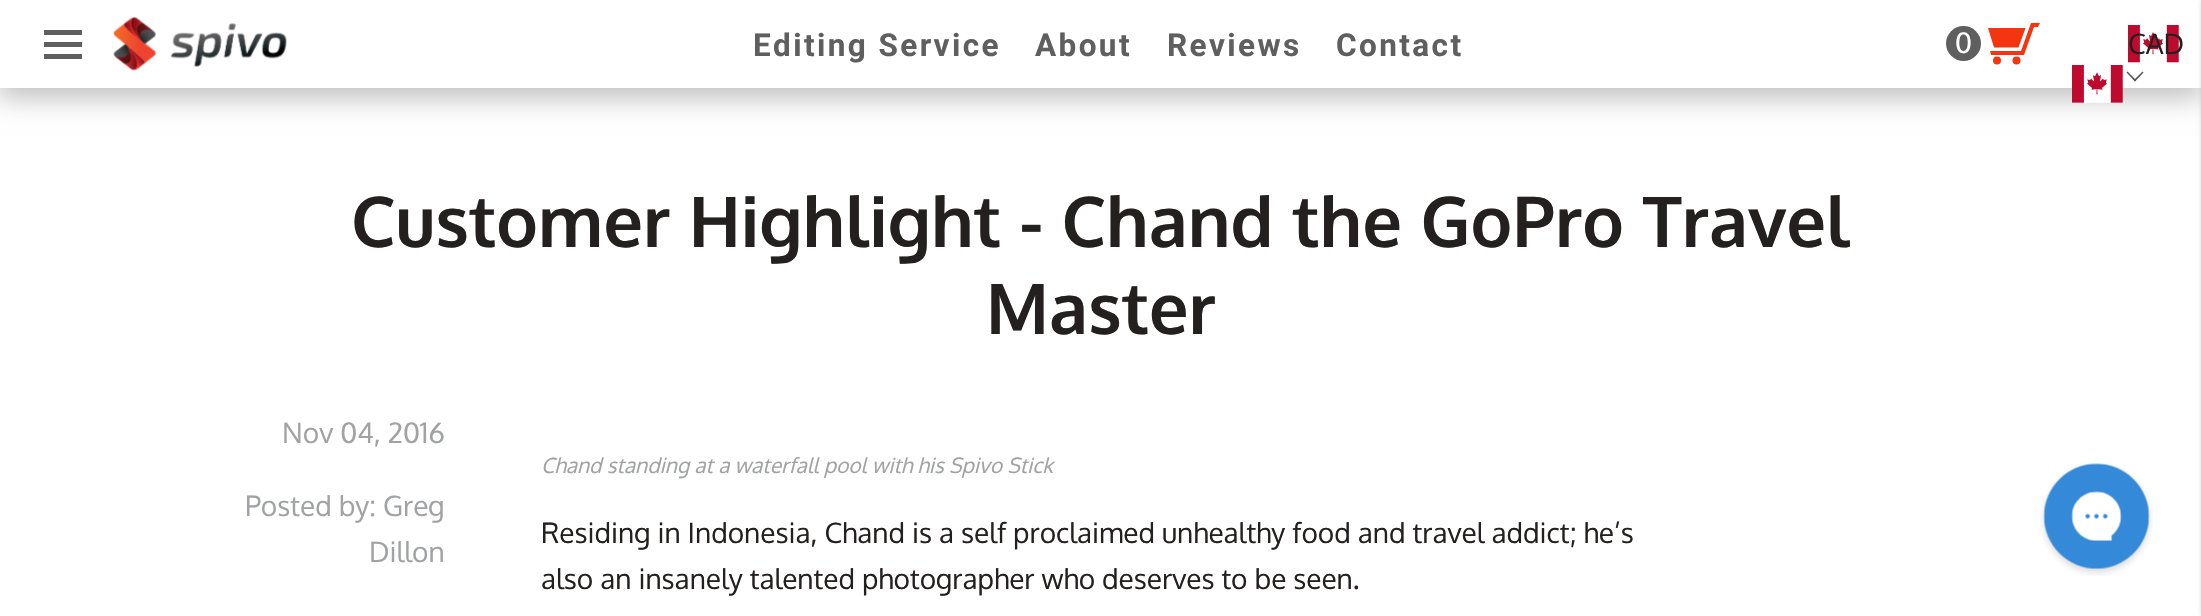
static SkFont makeFont(const char* family, int weight, float size, bool italic = false) {
  SkFontStyle style(weight, SkFontStyle::kNormal_Width,
    italic ? SkFontStyle::kItalic_Slant : SkFontStyle::kUpright_Slant);
  SkFont result(fontMgr->matchFamilyStyle(family, style), size);
  result.setSubpixel(true);
  return result;
}

static void text(SkCanvas* c, const char* s, float x, float y, const SkFont& font, SkColor color) {
  SkPaint ink(SkColor4f::FromColor(color));
  ink.setAntiAlias(true);
  c->drawString(s, x, y, font, ink);
}

static void spacedText(SkCanvas* c, const char* s, float x, float y, const SkFont& font, const SkPaint& ink, float letter, float word) {
  std::vector<SkGlyphID> glyphs(font.countText(s, strlen(s), SkTextEncoding::kUTF8));
  std::vector<float> xs(glyphs.size());
  font.textToGlyphs(s, strlen(s), SkTextEncoding::kUTF8, glyphs);
  font.getXPos(glyphs, xs, x);
  float extra = 0;
  for (size_t i = 0; i < glyphs.size(); i++) {
    xs[i] += extra;
    extra += letter + word * (glyphs[i] == font.unicharToGlyph(' '));
  }
  c->drawTextBlob(SkTextBlob::MakeFromPosHGlyphs(glyphs, xs, y, font), 0, 0, ink);
}

static void box(SkCanvas* c, float l, float t, float r, float b, SkColor color) {
  SkPaint ink(SkColor4f::FromColor(color));
  ink.setAntiAlias(true);
  c->drawRect(SkRect::MakeLTRB(l, t, r, b), ink);
}

static void picture(SkCanvas* c, const char* path, float l, float t, float r, float b) {
  auto image = SkImages::DeferredFromEncodedData(SkData::MakeFromFileName(path));
  c->drawImageRect(image, SkRect::MakeLTRB(l, t, r, b), SkSamplingOptions());
}

void draw(SkCanvas* c) {
  SkPaint paint;
  paint.setAntiAlias(true);
  c->clear(0xffffffff);
  paint.setColor(0x40000000);
  paint.setMaskFilter(SkMaskFilter::MakeBlur(kNormal_SkBlurStyle, 13));
  c->drawRect(SkRect::MakeLTRB(-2, 7, 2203, 98), paint);
  paint.setMaskFilter(nullptr);
  box(c, 0, 0, 2201, 88, 0xffffffff);
  box(c, 44, 30, 82, 35, 0xff5f5f5f);
  box(c, 44, 42, 82, 47, 0xff5f5f5f);
  box(c, 44, 54, 82, 59, 0xff5f5f5f);
  picture(c, "img_01.png", 113, 17, 156, 71);
  picture(c, "img_02.png", 170, 23, 287, 67);
  SkFont face1 = makeFont("Roboto", 700, 31.5f);
  paint.setColor(0xff5f5f5f);
  spacedText(c, "Editing Service", 753, 56, face1, paint, 2.4f, 0);
  spacedText(c, "About", 1035, 56, face1, paint, 2.4f, 0);
  spacedText(c, "Reviews", 1167, 56, face1, paint, 2.4f, 0);
  spacedText(c, "Contact", 1336, 56, face1, paint, 2.4f, 0);
  c->drawCircle(1963.5f, 43.5f, 17.5f, paint);
  SkFont face2 = makeFont("Oxygen", 400, 28);
  text(c, "0", 1955, 53, face2, 0xffffffff);
  paint.setColor(0xfff43510);
  c->drawPath(SkPathBuilder().moveTo(1990, 51).lineTo(1991, 55).lineTo(2024, 55).lineTo(2034, 27).lineTo(2038, 27).lineTo(2040, 23).lineTo(2031, 23).lineTo(2021, 51).close().detach(), paint);
  c->drawPath(SkPathBuilder().moveTo(2018.5f, 47.5f).lineTo(2025.5f, 28).lineTo(1988, 28).lineTo(1994, 47.5f).close().detach(), paint);
  c->drawCircle(1997, 60.5f, 4, paint);
  c->drawCircle(2016.5f, 60.5f, 4, paint);
  picture(c, "img_03.png", 2072, 25, 2179, 103);
  text(c, "CAD", 2128, 54, face2, 0xff24201f);
  paint.setColor(0xff555555);
  c->drawPath(SkPathBuilder().moveTo(2143.5f, 72.5f).lineTo(2135, 81.5f).lineTo(2134, 80).lineTo(2142.5f, 71.5f).close().detach(), paint);
  c->drawPath(SkPathBuilder().moveTo(2136, 80).lineTo(2135, 81.5f).lineTo(2126.5f, 72.5f).lineTo(2127.5f, 71.5f).close().detach(), paint);
  paint.setColor(0x33000000);
  paint.setMaskFilter(SkMaskFilter::MakeBlur(kNormal_SkBlurStyle, 2.5f));
  c->drawRect(SkRect::MakeLTRB(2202, 0, 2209, 616), paint);
  paint.setMaskFilter(nullptr);
  SkFont face3 = makeFont("Oxygen", 700, 70);
  text(c, "Customer Highlight - Chand the GoPro Travel", 351, 247, face3, 0xff24201f);
  text(c, "Master", 986, 334, face3, 0xff24201f);
  text(c, "Nov 04, 2016", 282, 443, face2, 0xffa0a2a3);
  text(c, "Posted by: Greg", 245, 516, face2, 0xffa0a2a3);
  text(c, "Dillon", 369, 562, face2, 0xffa0a2a3);
  SkFont face4 = makeFont("Oxygen", 400, 21, true);
  text(c, "Chand standing at a waterfall pool with his Spivo Stick", 541, 473, face4, 0xffa0a2a3);
  text(c, "Residing in Indonesia, Chand is a self proclaimed unhealthy food and travel addict; he’s", 541, 543, face2, 0xff24201f);
  text(c, "also an insanely talented photographer who deserves to be seen.", 541, 589, face2, 0xff24201f);
  picture(c, "img_04.png", 2040, 463, 2153, 576);
}
